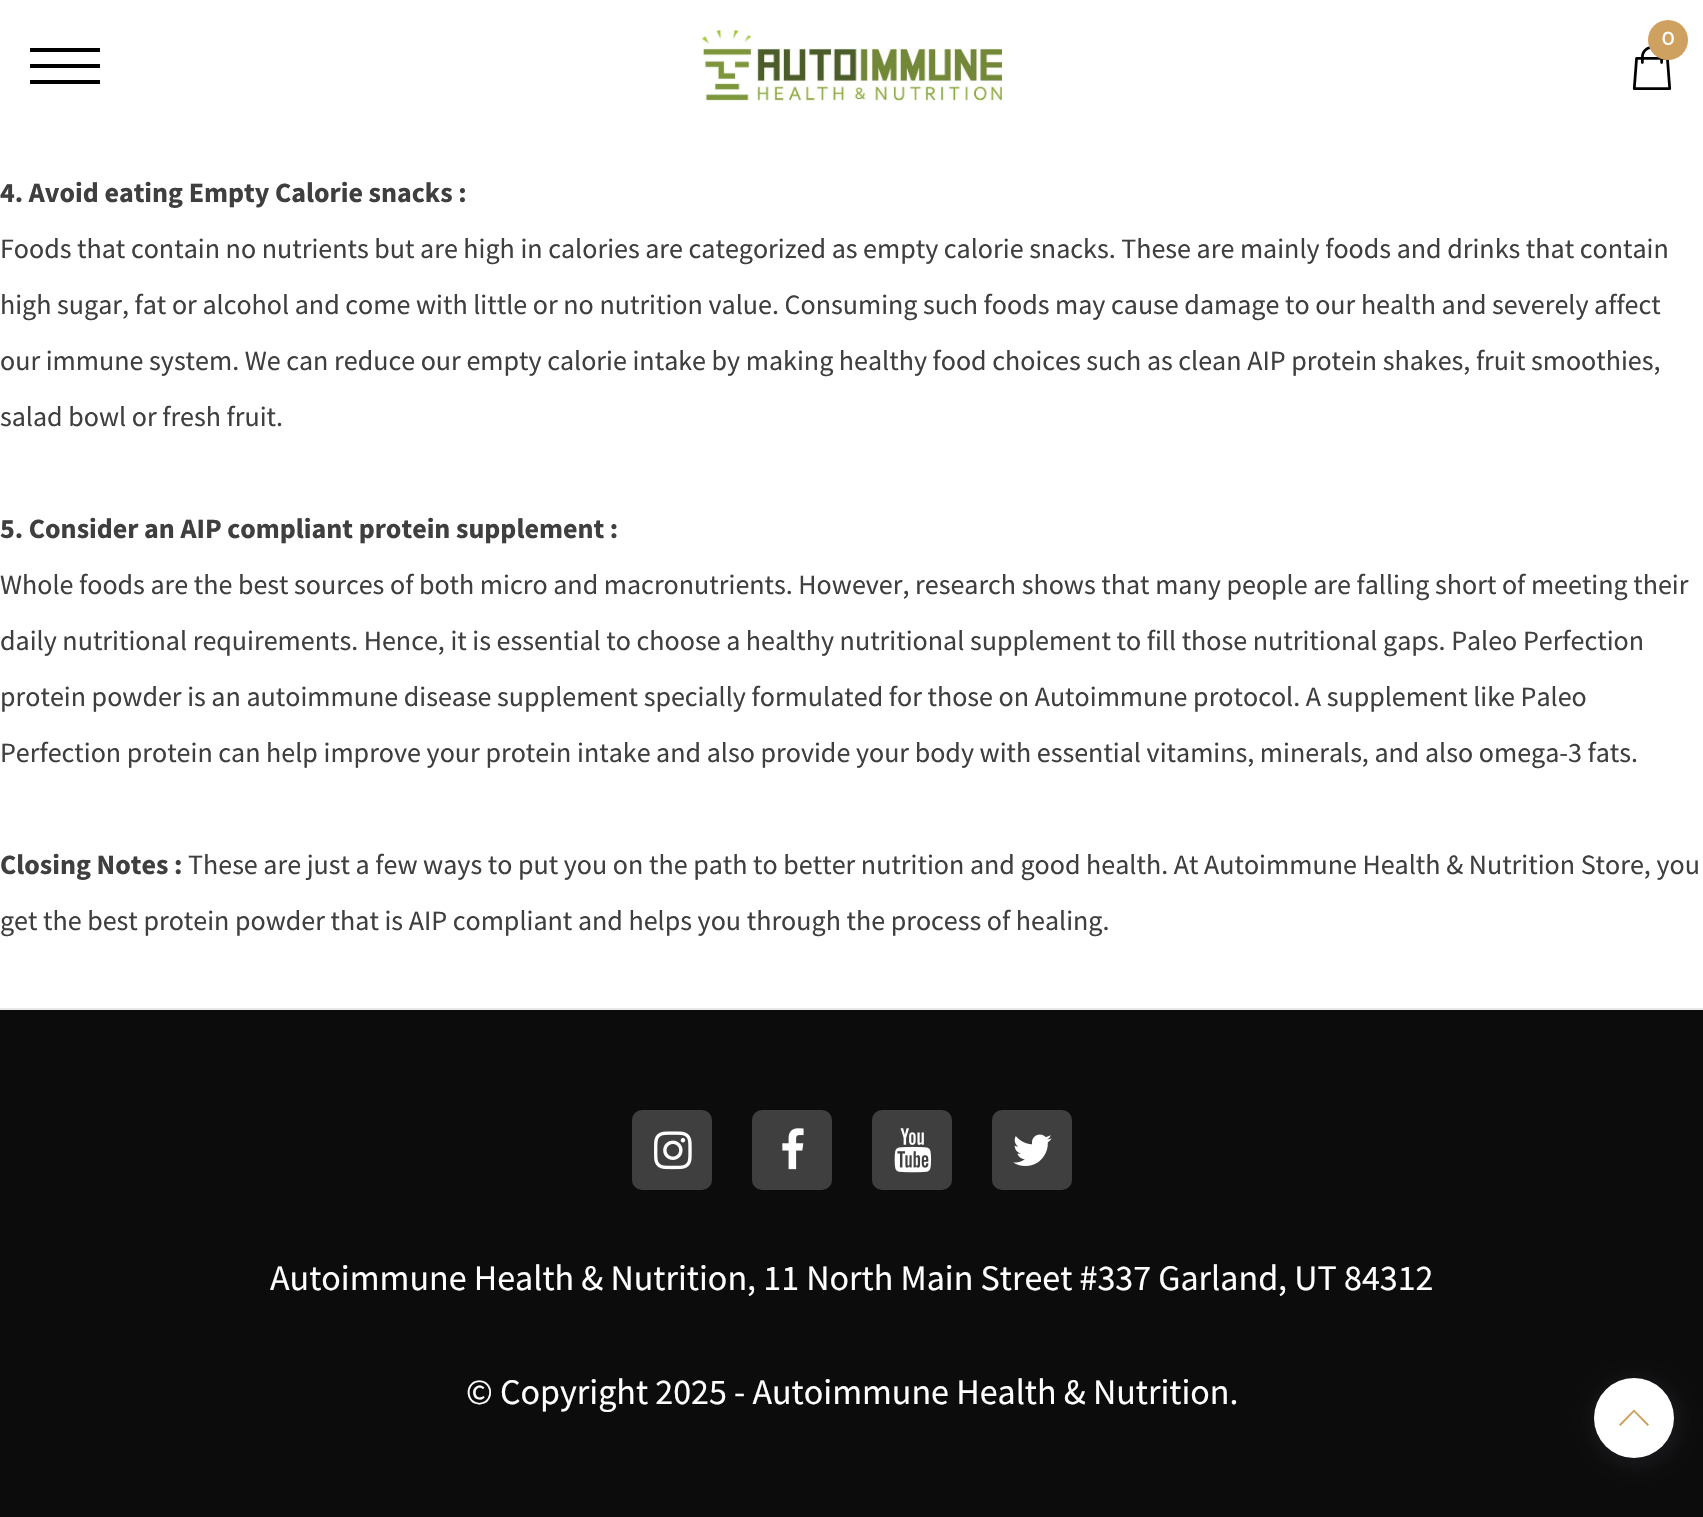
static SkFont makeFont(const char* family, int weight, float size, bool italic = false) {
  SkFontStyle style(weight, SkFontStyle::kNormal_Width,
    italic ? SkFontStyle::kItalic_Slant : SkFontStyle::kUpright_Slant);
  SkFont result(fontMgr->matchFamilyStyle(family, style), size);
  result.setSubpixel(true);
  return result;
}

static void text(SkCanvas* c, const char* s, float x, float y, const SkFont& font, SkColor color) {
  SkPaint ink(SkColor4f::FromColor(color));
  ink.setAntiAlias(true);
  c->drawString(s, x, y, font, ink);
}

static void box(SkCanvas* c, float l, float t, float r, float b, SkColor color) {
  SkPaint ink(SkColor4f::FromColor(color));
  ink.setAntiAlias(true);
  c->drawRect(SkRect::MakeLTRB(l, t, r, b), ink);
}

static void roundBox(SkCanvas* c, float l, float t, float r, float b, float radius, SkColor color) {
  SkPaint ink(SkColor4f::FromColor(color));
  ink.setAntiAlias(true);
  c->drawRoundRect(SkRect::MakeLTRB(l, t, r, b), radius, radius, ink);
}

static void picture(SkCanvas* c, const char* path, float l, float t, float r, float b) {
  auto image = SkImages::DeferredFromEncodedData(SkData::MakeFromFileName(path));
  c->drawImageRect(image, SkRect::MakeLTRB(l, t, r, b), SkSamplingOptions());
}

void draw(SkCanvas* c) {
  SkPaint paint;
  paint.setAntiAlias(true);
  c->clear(0xffffffff);
  picture(c, "img_01.png", 702, 30, 1002, 101);
  picture(c, "img_02.png", 1632, 46, 1672, 90);
  paint.setColor(0xffcfa161);
  c->drawCircle(1668, 40, 20, paint);
  SkFont face1 = makeFont("Josefin Sans", 400, 20);
  text(c, "0", 1662, 45, face1, 0xffffffff);
  box(c, 30, 48, 100, 52, 0xff000000);
  box(c, 30, 64, 100, 68, 0xff000000);
  box(c, 30, 80, 100, 84, 0xff000000);
  SkFont face2 = makeFont("Source Sans Pro", 700, 28);
  text(c, "4. Avoid eating Empty Calorie snacks :", 0, 202, face2, 0xff3f3f3f);
  SkFont face3 = makeFont("Source Sans Pro", 400, 28);
  text(c, "Foods that contain no nutrients but are high in calories are categorized as empty calorie snacks. These are mainly foods and drinks that contain", 0, 258, face3, 0xff3f3f3f);
  text(c, "high sugar, fat or alcohol and come with little or no nutrition value. Consuming such foods may cause damage to our health and severely affect", 0, 314, face3, 0xff3f3f3f);
  text(c, "our immune system. We can reduce our empty calorie intake by making healthy food choices such as clean AIP protein shakes, fruit smoothies,", 0, 370, face3, 0xff3f3f3f);
  text(c, "salad bowl or fresh fruit.", 0, 426, face3, 0xff3f3f3f);
  text(c, "5. Consider an AIP compliant protein supplement :", 0, 538, face2, 0xff3f3f3f);
  text(c, "Whole foods are the best sources of both micro and macronutrients. However, research shows that many people are falling short of meeting their", 0, 594, face3, 0xff3f3f3f);
  text(c, "daily nutritional requirements. Hence, it is essential to choose a healthy nutritional supplement to fill those nutritional gaps. Paleo Perfection", 0, 650, face3, 0xff3f3f3f);
  text(c, "protein powder is an autoimmune disease supplement specially formulated for those on Autoimmune protocol. A supplement like Paleo", 0, 706, face3, 0xff3f3f3f);
  text(c, "Perfection protein can help improve your protein intake and also provide your body with essential vitamins, minerals, and also omega-3 fats.", 0, 762, face3, 0xff3f3f3f);
  text(c, "Closing Notes :", 0, 874, face2, 0xff3f3f3f);
  text(c, "These are just a few ways to put you on the path to better nutrition and good health. At Autoimmune Health & Nutrition Store, you", 188, 874, face3, 0xff3f3f3f);
  text(c, "get the best protein powder that is AIP compliant and helps you through the process of healing.", 0, 930, face3, 0xff3f3f3f);
  box(c, 0, 1010, 1703, 1517, 0xff0c0c0c);
  box(c, 0, 1008, 1703, 1010, 0xffe8e8e8);
  roundBox(c, 632, 1110, 712, 1190, 10, 0xff3f3f3f);
  picture(c, "img_03.png", 654, 1131, 692, 1170);
  roundBox(c, 752, 1110, 832, 1190, 10, 0xff3f3f3f);
  picture(c, "img_04.png", 782, 1128, 804, 1170);
  roundBox(c, 872, 1110, 952, 1190, 10, 0xff3f3f3f);
  picture(c, "img_05.png", 894, 1128, 932, 1173);
  roundBox(c, 992, 1110, 1072, 1190, 10, 0xff3f3f3f);
  picture(c, "img_06.png", 1013, 1134, 1052, 1166);
  SkFont face4 = makeFont("Source Sans Pro", 400, 36);
  text(c, "Autoimmune Health & Nutrition, 11 North Main Street #337 Garland, UT 84312", 270, 1290, face4, 0xffffffff);
  text(c, "© Copyright 2025 - Autoimmune Health & Nutrition.", 466, 1404, face4, 0xffffffff);
  paint.setColor(0x33353944);
  paint.setMaskFilter(SkMaskFilter::MakeBlur(kNormal_SkBlurStyle, 6));
  c->drawRoundRect(SkRect::MakeLTRB(1588, 1374, 1684, 1470), 48, 48, paint);
  paint.setMaskFilter(nullptr);
  paint.setColor(0xffffffff);
  c->drawCircle(1634, 1418, 40, paint);
  paint.setColor(0xffcfa161);
  c->drawPath(SkPathBuilder().moveTo(1649, 1424.5f).lineTo(1647.5f, 1426).lineTo(1634, 1412).lineTo(1620.5f, 1426).lineTo(1619, 1424.5f).lineTo(1634, 1409.5f).close().detach(), paint);
}
